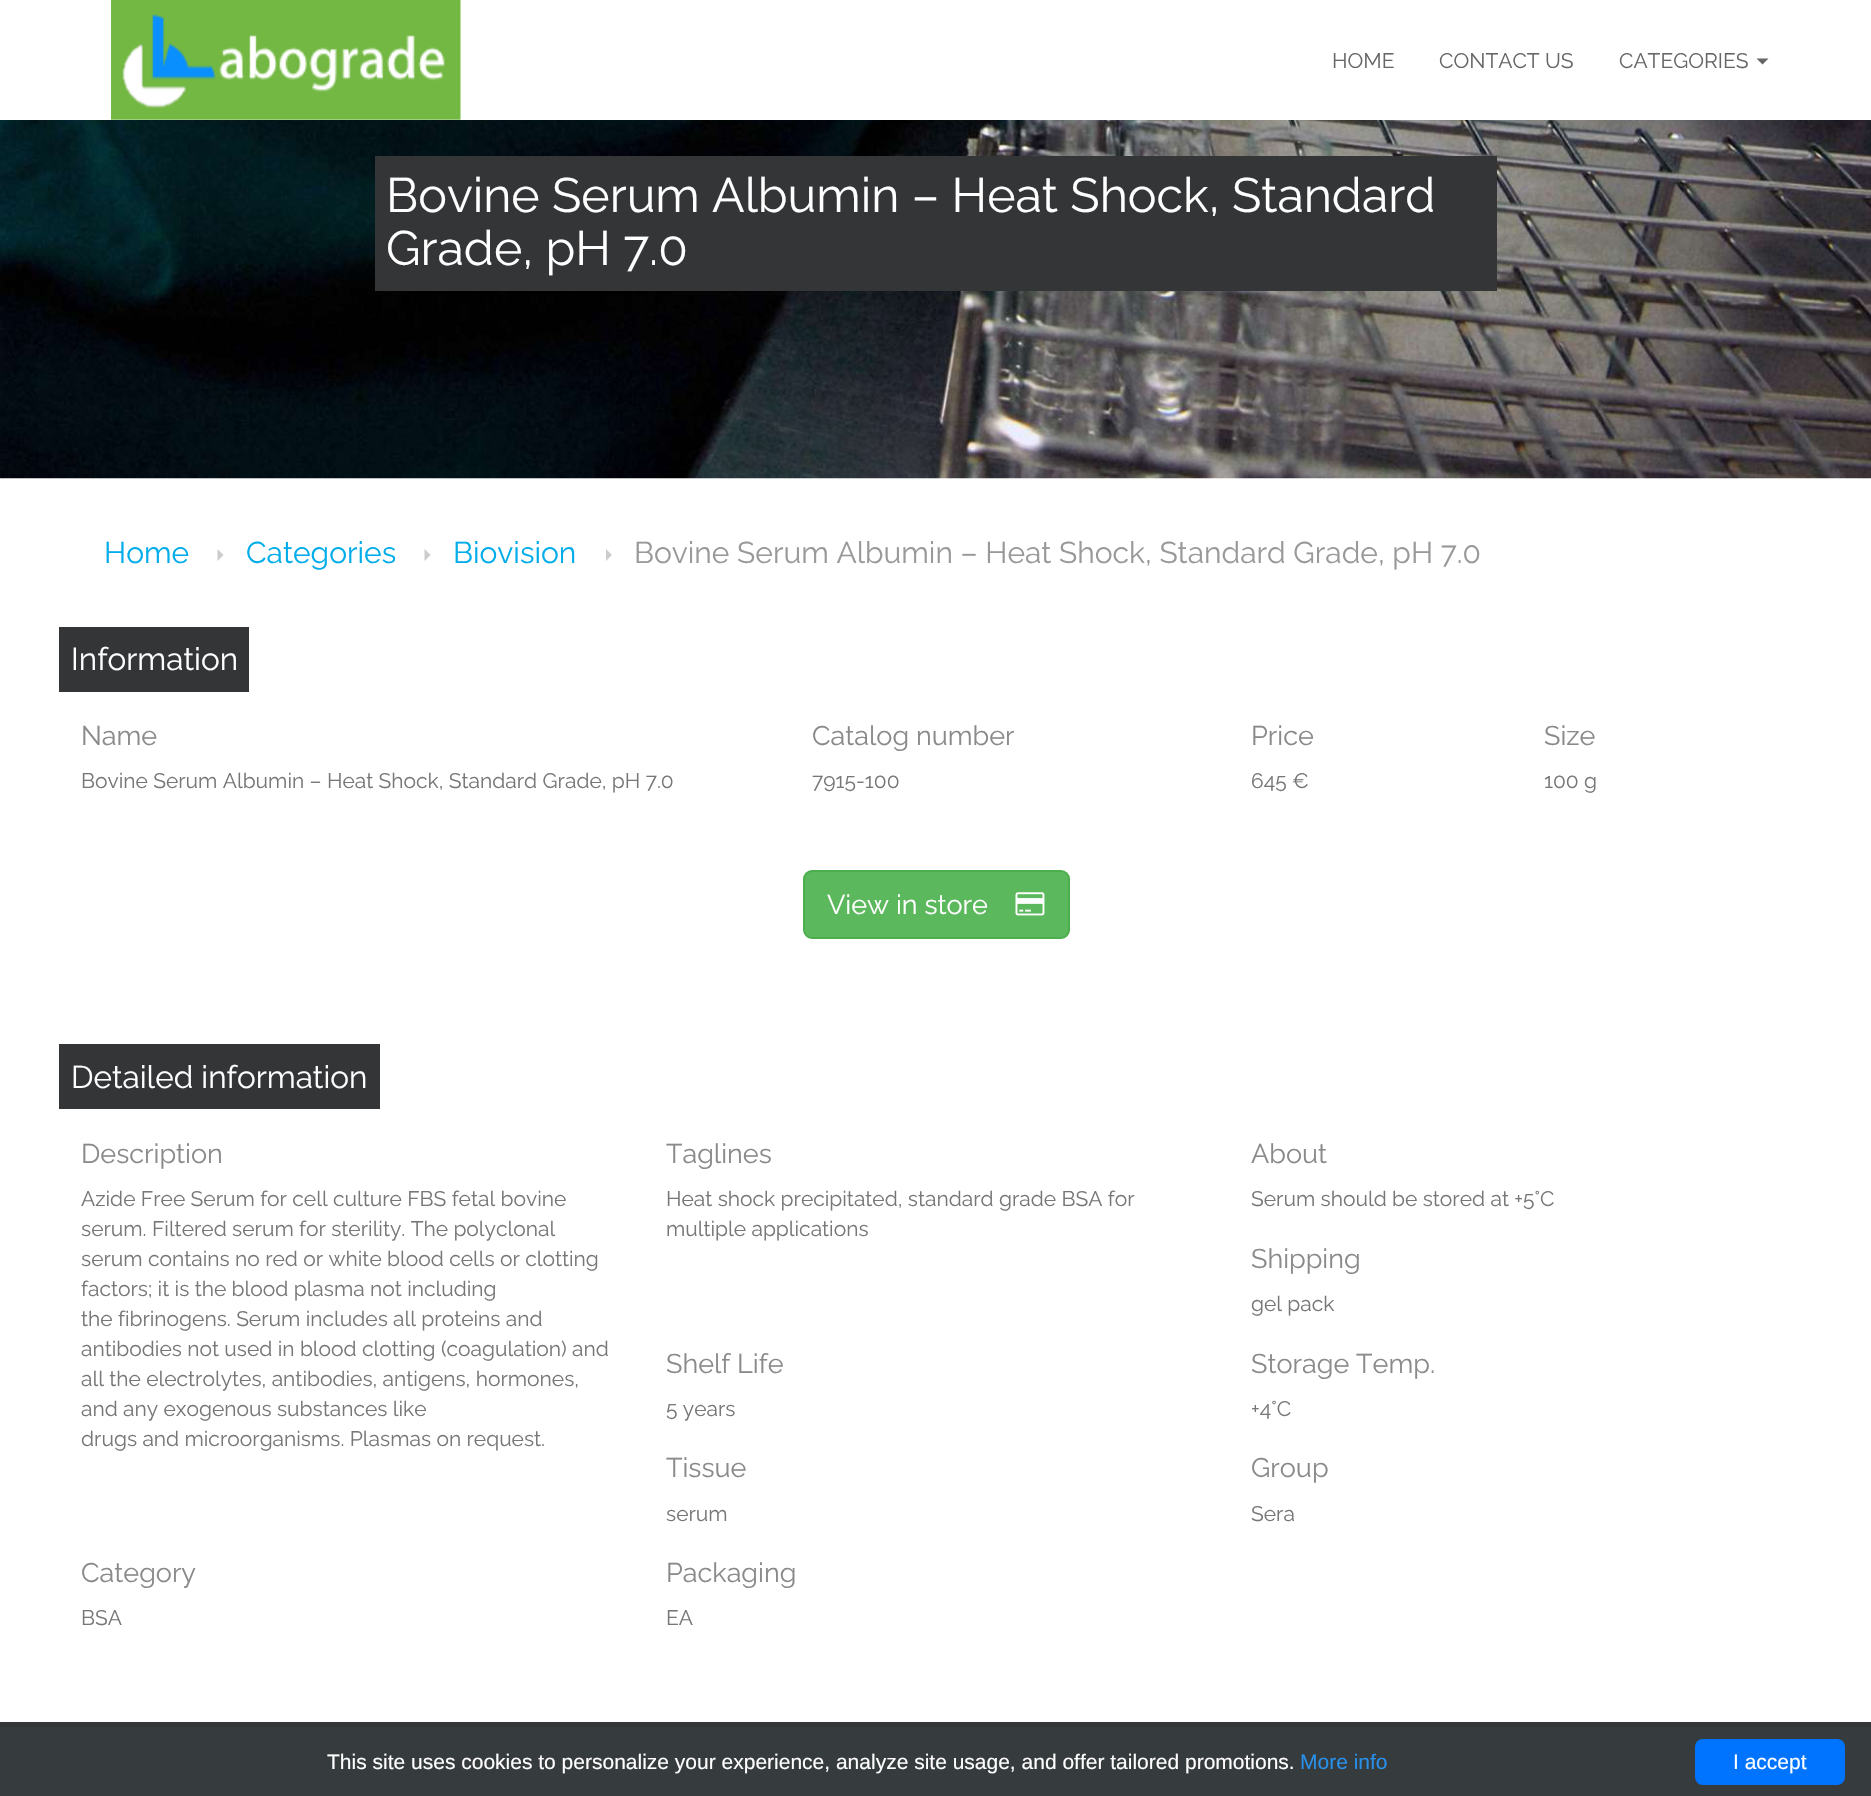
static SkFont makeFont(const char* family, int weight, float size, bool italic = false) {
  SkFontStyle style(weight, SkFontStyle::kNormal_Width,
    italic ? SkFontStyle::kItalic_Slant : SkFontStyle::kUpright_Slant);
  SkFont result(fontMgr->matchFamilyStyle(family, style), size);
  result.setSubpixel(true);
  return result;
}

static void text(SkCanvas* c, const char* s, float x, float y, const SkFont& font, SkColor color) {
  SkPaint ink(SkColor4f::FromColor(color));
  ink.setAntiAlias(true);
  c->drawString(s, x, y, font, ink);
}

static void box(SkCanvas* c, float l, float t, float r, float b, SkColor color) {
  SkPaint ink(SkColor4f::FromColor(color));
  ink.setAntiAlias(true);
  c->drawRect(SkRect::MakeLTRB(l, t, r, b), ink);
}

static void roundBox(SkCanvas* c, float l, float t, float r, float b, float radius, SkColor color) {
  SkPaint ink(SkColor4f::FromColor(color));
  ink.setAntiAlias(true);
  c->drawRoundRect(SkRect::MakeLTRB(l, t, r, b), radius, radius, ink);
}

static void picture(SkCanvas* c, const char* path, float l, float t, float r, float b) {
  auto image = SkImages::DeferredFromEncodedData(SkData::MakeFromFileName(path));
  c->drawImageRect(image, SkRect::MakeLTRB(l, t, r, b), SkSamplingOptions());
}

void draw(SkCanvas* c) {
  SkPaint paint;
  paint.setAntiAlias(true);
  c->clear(0xffffffff);
  picture(c, "img_01.png", 111, 0, 461, 120);
  SkFont face1 = makeFont("Raleway", 400, 21);
  text(c, "HOME", 1332, 68, face1, 0xff666666);
  text(c, "CONTACT US", 1439, 68, face1, 0xff666666);
  text(c, "CATEGORIES", 1619, 68, face1, 0xff666666);
  paint.setColor(0xff666666);
  c->drawPath(SkPathBuilder().moveTo(1756.5f, 58.5f).lineTo(1768.5f, 58.5f).lineTo(1762.5f, 64.5f).close().detach(), paint);
  picture(c, "img_02.png", 0, 120, 1871, 479);
  box(c, 375, 156, 1497, 291, 0xff343537);
  SkFont face2 = makeFont("Raleway", 400, 48.3f);
  text(c, "Bovine Serum Albumin – Heat Shock, Standard", 386, 212, face2, 0xffffffff);
  text(c, "Grade, pH 7.0", 386, 265, face2, 0xffffffff);
  SkFont face3 = makeFont("Raleway", 400, 30);
  text(c, "Home", 104, 563, face3, 0xff00ace9);
  paint.setColor(0xffcccccc);
  c->drawPath(SkPathBuilder().moveTo(217.5f, 561).lineTo(217.5f, 549).lineTo(223.5f, 555).close().detach(), paint);
  text(c, "Categories", 246, 563, face3, 0xff00ace9);
  c->drawPath(SkPathBuilder().moveTo(424.5f, 561).lineTo(424.5f, 549).lineTo(430.5f, 555).close().detach(), paint);
  text(c, "Biovision", 453, 563, face3, 0xff00ace9);
  c->drawPath(SkPathBuilder().moveTo(606, 561).lineTo(606, 549).lineTo(612, 555).close().detach(), paint);
  text(c, "Bovine Serum Albumin – Heat Shock, Standard Grade, pH 7.0", 634, 563, face3, 0xff999999);
  box(c, 59, 627, 249, 692, 0xff343537);
  SkFont face4 = makeFont("Raleway", 400, 31.5f);
  text(c, "Information", 71, 670, face4, 0xffffffff);
  SkFont face5 = makeFont("Raleway", 400, 27);
  text(c, "Name", 81, 745, face5, 0xff8a8a8a);
  text(c, "Bovine Serum Albumin – Heat Shock, Standard Grade, pH 7.0", 81, 788, face1, 0xff777777);
  text(c, "Catalog number", 812, 745, face5, 0xff8a8a8a);
  text(c, "7915-100", 812, 788, face1, 0xff777777);
  text(c, "Price", 1251, 745, face5, 0xff8a8a8a);
  text(c, "645 €", 1251, 788, face1, 0xff777777);
  text(c, "Size", 1544, 745, face5, 0xff8a8a8a);
  text(c, "100 g", 1544, 788, face1, 0xff777777);
  paint.setColor(0xff5cb85c);
  c->drawRoundRect(SkRect::MakeLTRB(804, 871, 1069, 938), 8, 8, paint);
  paint.setStyle(SkPaint::kStroke_Style);
  paint.setStrokeWidth(2);
  paint.setColor(0xff4cae4c);
  c->drawRoundRect(SkRect::MakeLTRB(804, 871, 1069, 938), 8, 8, paint);
  text(c, "View in store", 827, 914, face5, 0xffffffff);
  picture(c, "img_03.png", 1015, 892, 1045, 916);
  box(c, 59, 1044, 380, 1109, 0xff343537);
  text(c, "Detailed information", 71, 1088, face4, 0xffffffff);
  text(c, "Description", 81, 1163, face5, 0xff8a8a8a);
  text(c, "Azide Free Serum for cell culture FBS fetal bovine", 81, 1206, face1, 0xff777777);
  text(c, "serum. Filtered serum for sterility. The polyclonal", 81, 1236, face1, 0xff777777);
  text(c, "serum contains no red or white blood cells or clotting", 81, 1266, face1, 0xff777777);
  text(c, "factors; it is the blood plasma not including", 81, 1296, face1, 0xff777777);
  text(c, "the fibrinogens. Serum includes all proteins and", 81, 1326, face1, 0xff777777);
  text(c, "antibodies not used in blood clotting (coagulation) and", 81, 1356, face1, 0xff777777);
  text(c, "all the electrolytes, antibodies, antigens, hormones,", 81, 1386, face1, 0xff777777);
  text(c, "and any exogenous substances like", 81, 1416, face1, 0xff777777);
  text(c, "drugs and microorganisms. Plasmas on request.", 81, 1446, face1, 0xff777777);
  text(c, "Taglines", 666, 1163, face5, 0xff8a8a8a);
  text(c, "Heat shock precipitated, standard grade BSA for", 666, 1206, face1, 0xff777777);
  text(c, "multiple applications", 666, 1236, face1, 0xff777777);
  text(c, "About", 1251, 1163, face5, 0xff8a8a8a);
  text(c, "Serum should be stored at +5°C", 1251, 1206, face1, 0xff777777);
  text(c, "Shipping", 1251, 1268, face5, 0xff8a8a8a);
  text(c, "gel pack", 1251, 1311, face1, 0xff777777);
  text(c, "Shelf Life", 666, 1373, face5, 0xff8a8a8a);
  text(c, "5 years", 666, 1416, face1, 0xff777777);
  text(c, "Storage Temp.", 1251, 1373, face5, 0xff8a8a8a);
  text(c, "+4°C", 1251, 1416, face1, 0xff777777);
  text(c, "Tissue", 666, 1477, face5, 0xff8a8a8a);
  text(c, "serum", 666, 1521, face1, 0xff777777);
  text(c, "Group", 1251, 1477, face5, 0xff8a8a8a);
  text(c, "Sera", 1251, 1521, face1, 0xff777777);
  text(c, "Category", 81, 1582, face5, 0xff8a8a8a);
  text(c, "BSA", 81, 1625, face1, 0xff777777);
  text(c, "Packaging", 666, 1582, face5, 0xff8a8a8a);
  text(c, "EA", 666, 1625, face1, 0xff777777);
  box(c, 0, 1722, 1871, 1727, 0xff333536);
  box(c, 0, 1727, 1871, 1796, 0xff363b3e);
  SkFont face6 = makeFont("Liberation Sans", 400, 21);
  text(c, "This site uses cookies to personalize your experience, analyze site usage, and offer tailored promotions.", 327, 1769, face6, 0xffffffff);
  text(c, "More info", 1300, 1769, face6, 0xff2990ea);
  roundBox(c, 1695, 1739, 1845, 1785, 8, 0xff0073ff);
  text(c, "I accept", 1733, 1769, face6, 0xffffffff);
}
